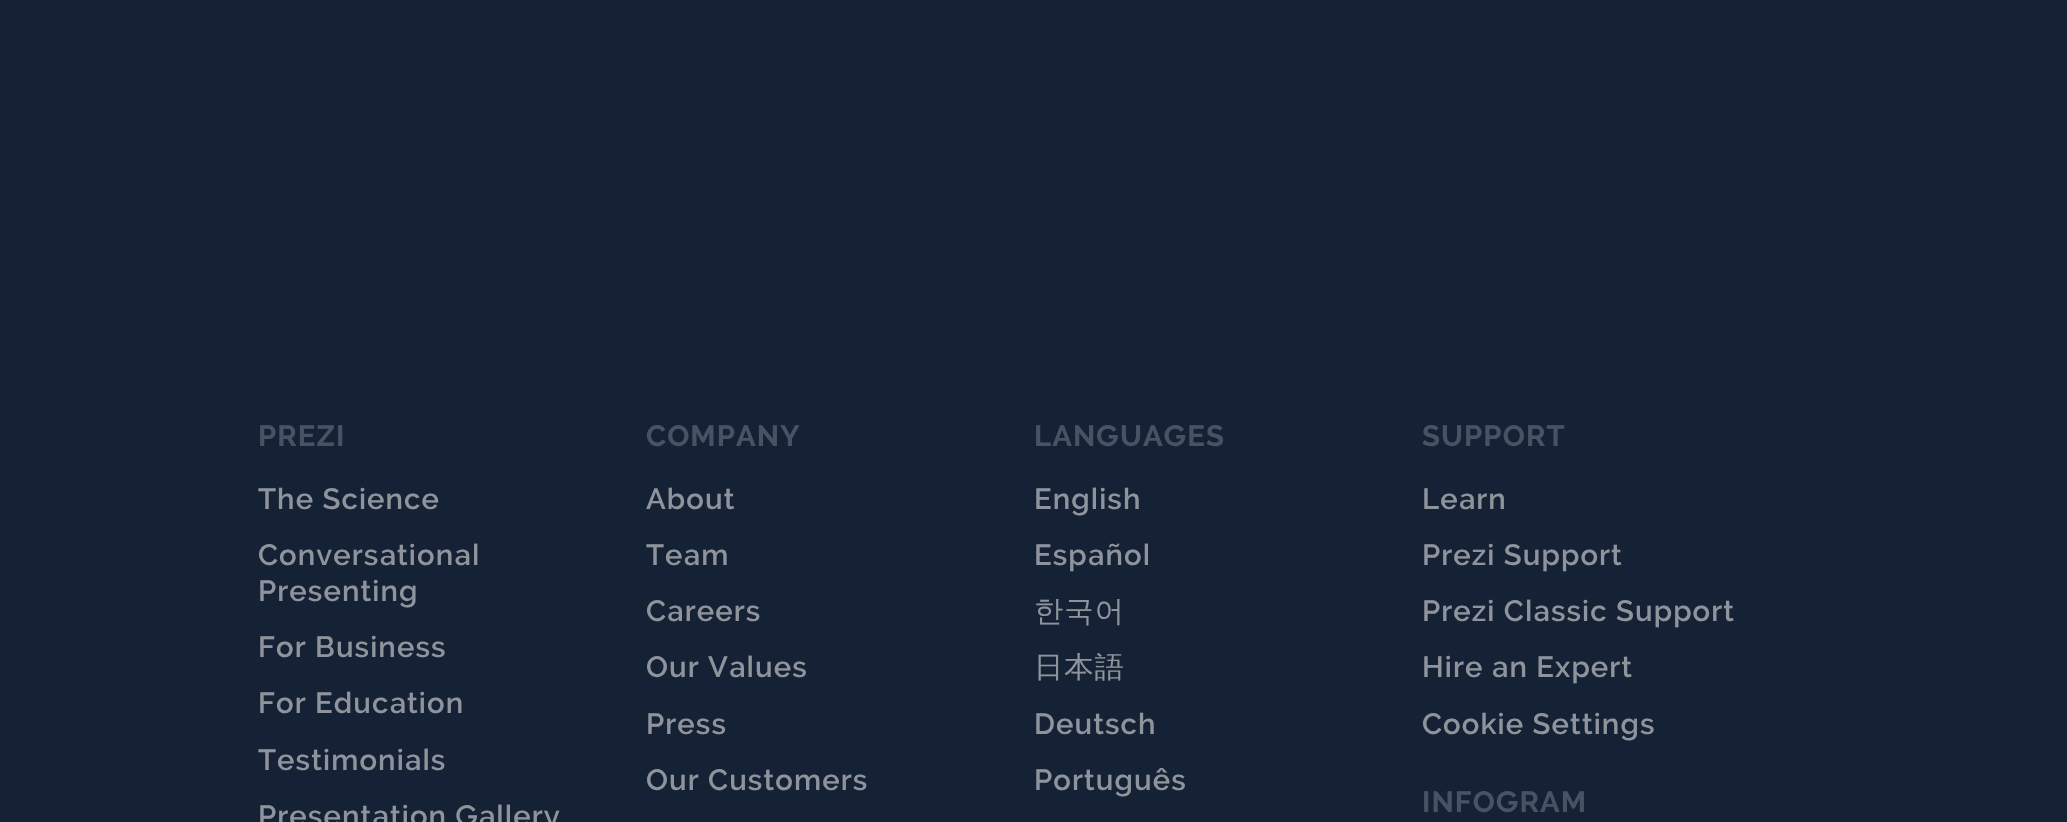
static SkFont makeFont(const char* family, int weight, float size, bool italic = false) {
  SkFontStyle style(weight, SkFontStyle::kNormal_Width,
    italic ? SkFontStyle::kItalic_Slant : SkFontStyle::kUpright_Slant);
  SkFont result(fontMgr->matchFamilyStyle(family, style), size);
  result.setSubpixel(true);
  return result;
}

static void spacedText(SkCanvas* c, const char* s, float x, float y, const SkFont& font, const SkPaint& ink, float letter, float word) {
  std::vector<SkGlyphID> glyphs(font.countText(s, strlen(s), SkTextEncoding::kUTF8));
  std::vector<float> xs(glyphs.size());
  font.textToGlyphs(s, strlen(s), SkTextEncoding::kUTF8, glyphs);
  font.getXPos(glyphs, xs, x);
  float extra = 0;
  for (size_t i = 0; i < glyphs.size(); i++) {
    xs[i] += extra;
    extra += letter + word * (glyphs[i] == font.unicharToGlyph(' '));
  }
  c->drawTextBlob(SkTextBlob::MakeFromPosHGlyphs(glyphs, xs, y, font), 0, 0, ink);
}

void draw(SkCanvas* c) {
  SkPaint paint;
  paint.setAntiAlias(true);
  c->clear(0xff152235);
  SkFont face1 = makeFont("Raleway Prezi", 700, 29.25f);
  paint.setColor(0xff475262);
  spacedText(c, "PREZI", 258, 446, face1, paint, 1.1f, 0);
  SkFont face2 = makeFont("Raleway Prezi", 600, 29.25f);
  paint.setColor(0xff8e939c);
  spacedText(c, "The Science", 258, 509, face2, paint, 1.1f, 0);
  spacedText(c, "Conversational", 258, 565, face2, paint, 1.1f, 0);
  spacedText(c, "Presenting", 258, 601, face2, paint, 1.1f, 0);
  spacedText(c, "For Business", 258, 657, face2, paint, 1.1f, 0);
  spacedText(c, "For Education", 258, 713, face2, paint, 1.1f, 0);
  spacedText(c, "Testimonials", 258, 770, face2, paint, 1.1f, 0);
  spacedText(c, "Presentation Gallery", 258, 826, face2, paint, 1.1f, 0);
  paint.setColor(0xff475262);
  spacedText(c, "COMPANY", 646, 446, face1, paint, 1.1f, 0);
  paint.setColor(0xff8e939c);
  spacedText(c, "About", 646, 509, face2, paint, 1.1f, 0);
  spacedText(c, "Team", 646, 565, face2, paint, 1.1f, 0);
  spacedText(c, "Careers", 646, 621, face2, paint, 1.1f, 0);
  spacedText(c, "Our Values", 646, 677, face2, paint, 1.1f, 0);
  spacedText(c, "Press", 646, 734, face2, paint, 1.1f, 0);
  spacedText(c, "Our Customers", 646, 790, face2, paint, 1.1f, 0);
  paint.setColor(0xff475262);
  spacedText(c, "LANGUAGES", 1034, 446, face1, paint, 1.1f, 0);
  paint.setColor(0xff8e939c);
  spacedText(c, "English", 1034, 509, face2, paint, 1.1f, 0);
  spacedText(c, "Español", 1034, 565, face2, paint, 1.1f, 0);
  SkFont face3 = makeFont("WenQuanYi Zen Hei", 500, 29.25f);
  spacedText(c, "한국어", 1034, 621, face3, paint, 1.1f, 0);
  spacedText(c, "日本語", 1034, 677, face3, paint, 1.1f, 0);
  spacedText(c, "Deutsch", 1034, 734, face2, paint, 1.1f, 0);
  spacedText(c, "Português", 1034, 790, face2, paint, 1.1f, 0);
  paint.setColor(0xff475262);
  spacedText(c, "SUPPORT", 1422, 446, face1, paint, 1.1f, 0);
  paint.setColor(0xff8e939c);
  spacedText(c, "Learn", 1422, 509, face2, paint, 1.1f, 0);
  spacedText(c, "Prezi Support", 1422, 565, face2, paint, 1.1f, 0);
  spacedText(c, "Prezi Classic Support", 1422, 621, face2, paint, 1.1f, 0);
  spacedText(c, "Hire an Expert", 1422, 677, face2, paint, 1.1f, 0);
  spacedText(c, "Cookie Settings", 1422, 734, face2, paint, 1.1f, 0);
  paint.setColor(0xff475262);
  spacedText(c, "INFOGRAM", 1422, 812, face1, paint, 1.1f, 0);
}
